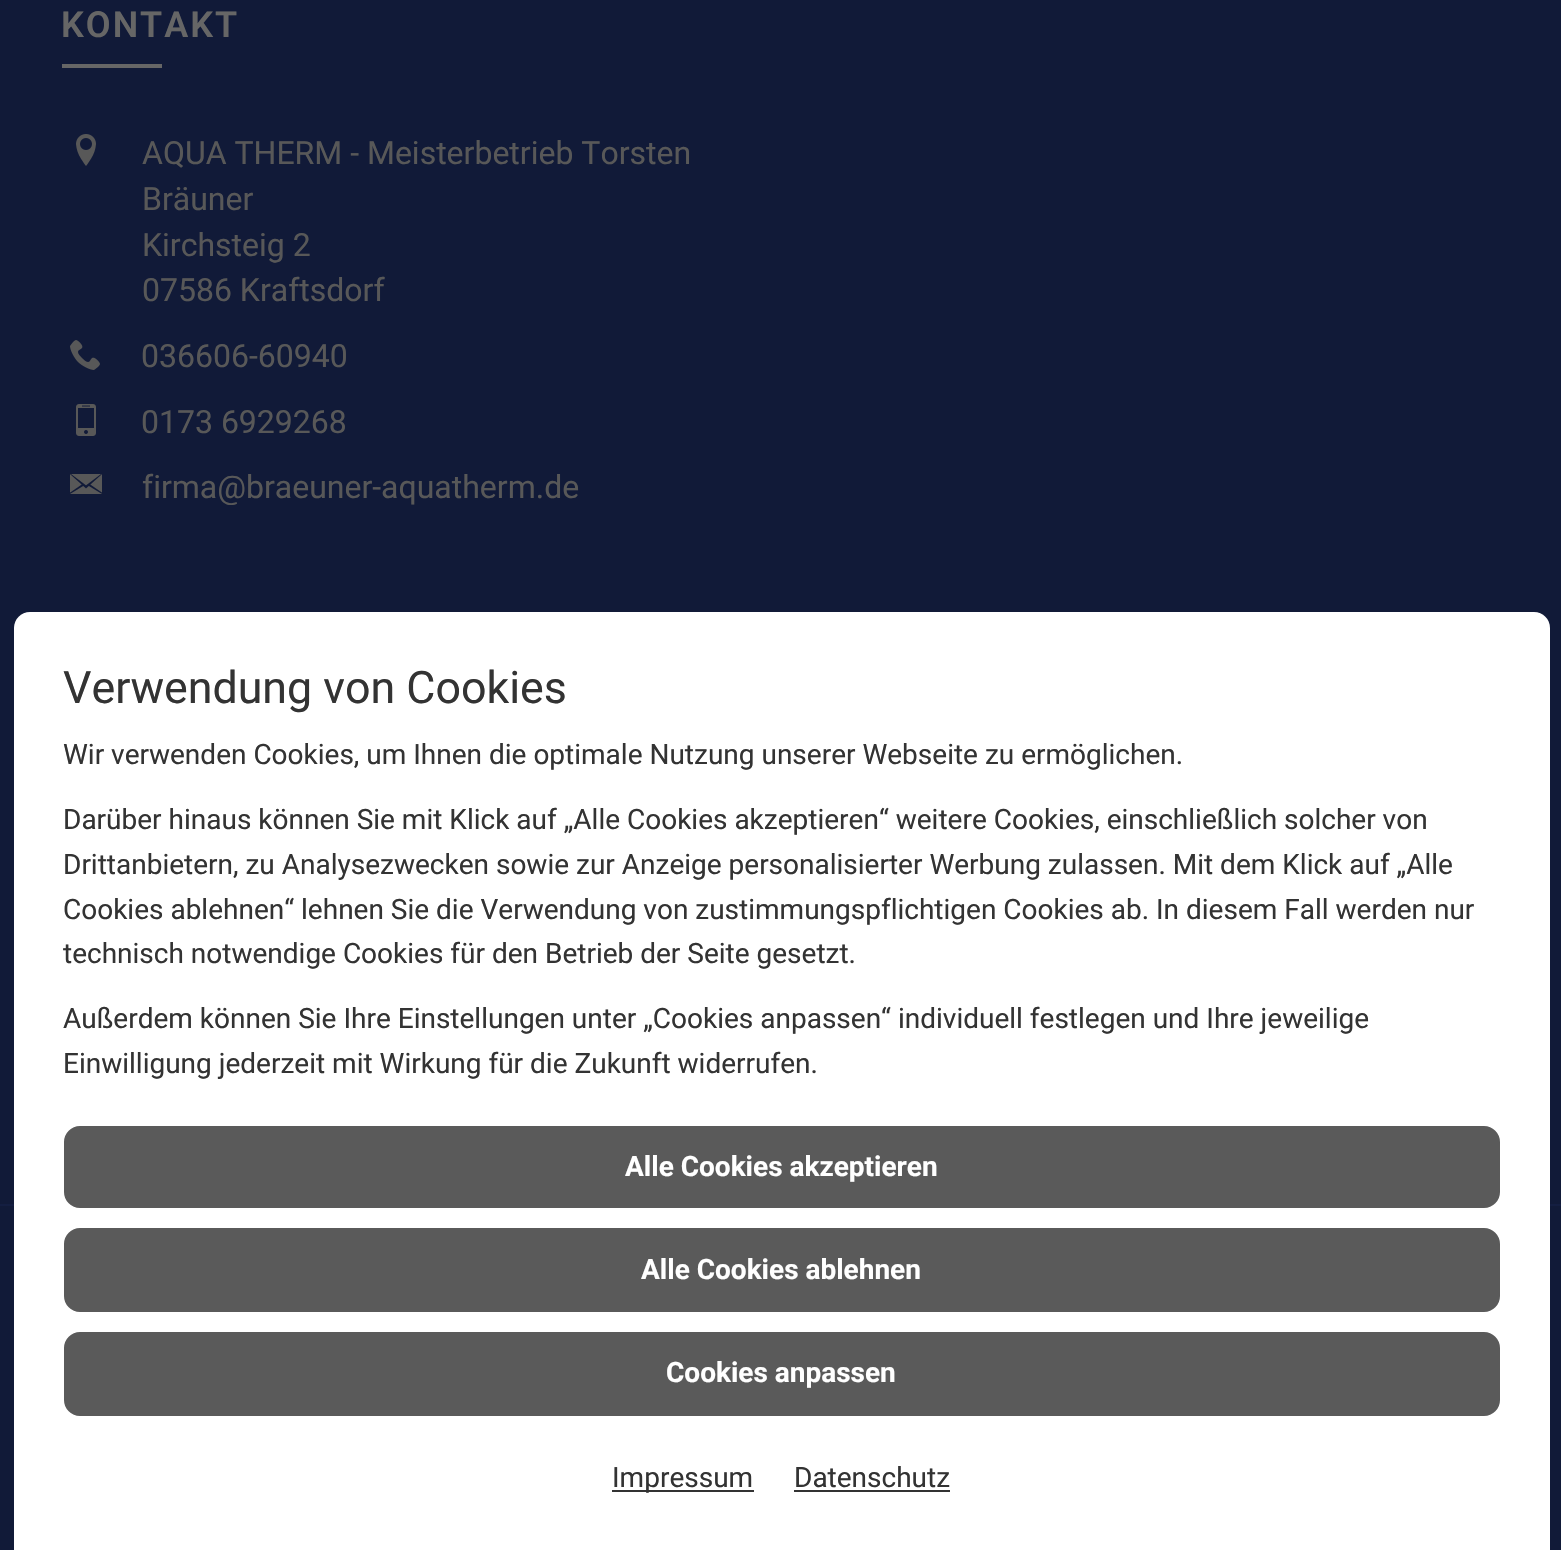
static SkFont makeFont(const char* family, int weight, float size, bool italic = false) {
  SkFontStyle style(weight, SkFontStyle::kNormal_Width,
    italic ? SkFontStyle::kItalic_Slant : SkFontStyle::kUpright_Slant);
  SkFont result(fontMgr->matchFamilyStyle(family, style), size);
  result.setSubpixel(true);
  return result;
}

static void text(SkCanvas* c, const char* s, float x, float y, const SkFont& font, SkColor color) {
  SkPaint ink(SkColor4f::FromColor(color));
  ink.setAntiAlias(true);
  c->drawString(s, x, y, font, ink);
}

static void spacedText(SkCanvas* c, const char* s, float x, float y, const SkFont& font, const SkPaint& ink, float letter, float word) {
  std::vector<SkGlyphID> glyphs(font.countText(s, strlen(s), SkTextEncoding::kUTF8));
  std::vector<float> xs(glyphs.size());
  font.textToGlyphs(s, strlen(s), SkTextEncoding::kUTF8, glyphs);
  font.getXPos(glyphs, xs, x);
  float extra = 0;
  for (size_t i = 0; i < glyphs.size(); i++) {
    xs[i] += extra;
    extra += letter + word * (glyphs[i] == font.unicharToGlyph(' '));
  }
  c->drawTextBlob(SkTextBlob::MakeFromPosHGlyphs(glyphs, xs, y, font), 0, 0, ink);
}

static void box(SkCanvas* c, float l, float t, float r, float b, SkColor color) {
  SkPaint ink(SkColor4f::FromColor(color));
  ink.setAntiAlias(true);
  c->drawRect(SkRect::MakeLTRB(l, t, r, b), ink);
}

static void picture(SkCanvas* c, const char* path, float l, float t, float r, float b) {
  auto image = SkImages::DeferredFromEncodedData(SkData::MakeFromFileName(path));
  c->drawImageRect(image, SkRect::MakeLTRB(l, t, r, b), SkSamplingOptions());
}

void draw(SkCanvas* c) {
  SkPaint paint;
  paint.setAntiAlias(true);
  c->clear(0xff111a38);
  SkFont face1 = makeFont("Roboto", 600, 36);
  paint.setColor(0xff666666);
  spacedText(c, "KONTAKT", 61, 37, face1, paint, 2, 0);
  box(c, 62, 64, 162, 68, 0xff666666);
  picture(c, "img_01.png", 76, 134, 96, 166);
  SkFont face2 = makeFont("Roboto", 400, 32);
  text(c, "AQUA THERM - Meisterbetrieb Torsten", 142, 164, face2, 0xff585858);
  text(c, "Bräuner", 142, 210, face2, 0xff585858);
  text(c, "Kirchsteig 2", 142, 256, face2, 0xff585858);
  text(c, "07586 Kraftsdorf", 142, 301, face2, 0xff585858);
  picture(c, "img_02.png", 70, 340, 100, 370);
  text(c, "036606-60940", 141, 367, face2, 0xff585858);
  picture(c, "img_03.png", 76, 404, 96, 436);
  text(c, "0173 6929268", 141, 433, face2, 0xff585858);
  picture(c, "img_04.png", 70, 474, 102, 494);
  text(c, "firma@braeuner-aquatherm.de", 142, 498, face2, 0xff585858);
  box(c, 0, 1204, 1561, 1206, 0xff141e41);
  paint.setColor(0xffffffff);
  c->drawPath(SkPathBuilder().moveTo(30, 612).lineTo(1534, 612).cubicTo(1543, 612, 1550, 619, 1550, 628).lineTo(1550, 1550).lineTo(14, 1550).lineTo(14, 628).cubicTo(14, 619, 21, 612, 30, 612).close().detach(), paint);
  SkFont face3 = makeFont("Roboto", 400, 44.75f);
  text(c, "Verwendung von Cookies", 63, 703, face3, 0xff333333);
  SkFont face4 = makeFont("Roboto", 400, 28);
  text(c, "Wir verwenden Cookies, um Ihnen die optimale Nutzung unserer Webseite zu ermöglichen.", 63, 764, face4, 0xff333333);
  text(c, "Darüber hinaus können Sie mit Klick auf „Alle Cookies akzeptieren“ weitere Cookies, einschließlich solcher von", 63, 829, face4, 0xff333333);
  text(c, "Drittanbietern, zu Analysezwecken sowie zur Anzeige personalisierter Werbung zulassen. Mit dem Klick auf „Alle", 63, 874, face4, 0xff333333);
  text(c, "Cookies ablehnen“ lehnen Sie die Verwendung von zustimmungspflichtigen Cookies ab. In diesem Fall werden nur", 63, 919, face4, 0xff333333);
  text(c, "technisch notwendige Cookies für den Betrieb der Seite gesetzt.", 63, 963, face4, 0xff333333);
  text(c, "Außerdem können Sie Ihre Einstellungen unter „Cookies anpassen“ individuell festlegen und Ihre jeweilige", 63, 1028, face4, 0xff333333);
  text(c, "Einwilligung jederzeit mit Wirkung für die Zukunft widerrufen.", 63, 1073, face4, 0xff333333);
  paint.setColor(0xff5a5a5a);
  c->drawRoundRect(SkRect::MakeLTRB(65, 1127, 1499, 1207), 15, 15, paint);
  paint.setStyle(SkPaint::kStroke_Style);
  paint.setStrokeWidth(2);
  c->drawRoundRect(SkRect::MakeLTRB(65, 1127, 1499, 1207), 15, 15, paint);
  SkFont face5 = makeFont("Roboto", 700, 28);
  text(c, "Alle Cookies akzeptieren", 625, 1176, face5, 0xffffffff);
  paint.setStyle(SkPaint::kFill_Style);
  c->drawRoundRect(SkRect::MakeLTRB(65, 1229, 1499, 1311), 15, 15, paint);
  paint.setStyle(SkPaint::kStroke_Style);
  c->drawRoundRect(SkRect::MakeLTRB(65, 1229, 1499, 1311), 15, 15, paint);
  text(c, "Alle Cookies ablehnen", 641, 1279, face5, 0xffffffff);
  paint.setStyle(SkPaint::kFill_Style);
  c->drawRoundRect(SkRect::MakeLTRB(65, 1333, 1499, 1415), 15, 15, paint);
  paint.setStyle(SkPaint::kStroke_Style);
  c->drawRoundRect(SkRect::MakeLTRB(65, 1333, 1499, 1415), 15, 15, paint);
  text(c, "Cookies anpassen", 666, 1382, face5, 0xffffffff);
  box(c, 612, 1490, 754, 1492, 0xff333333);
  text(c, "Impressum", 612, 1487, face4, 0xff333333);
  text(c, "Datenschutz", 794, 1487, face4, 0xff333333);
  box(c, 794, 1490, 950, 1492, 0xff333333);
}
